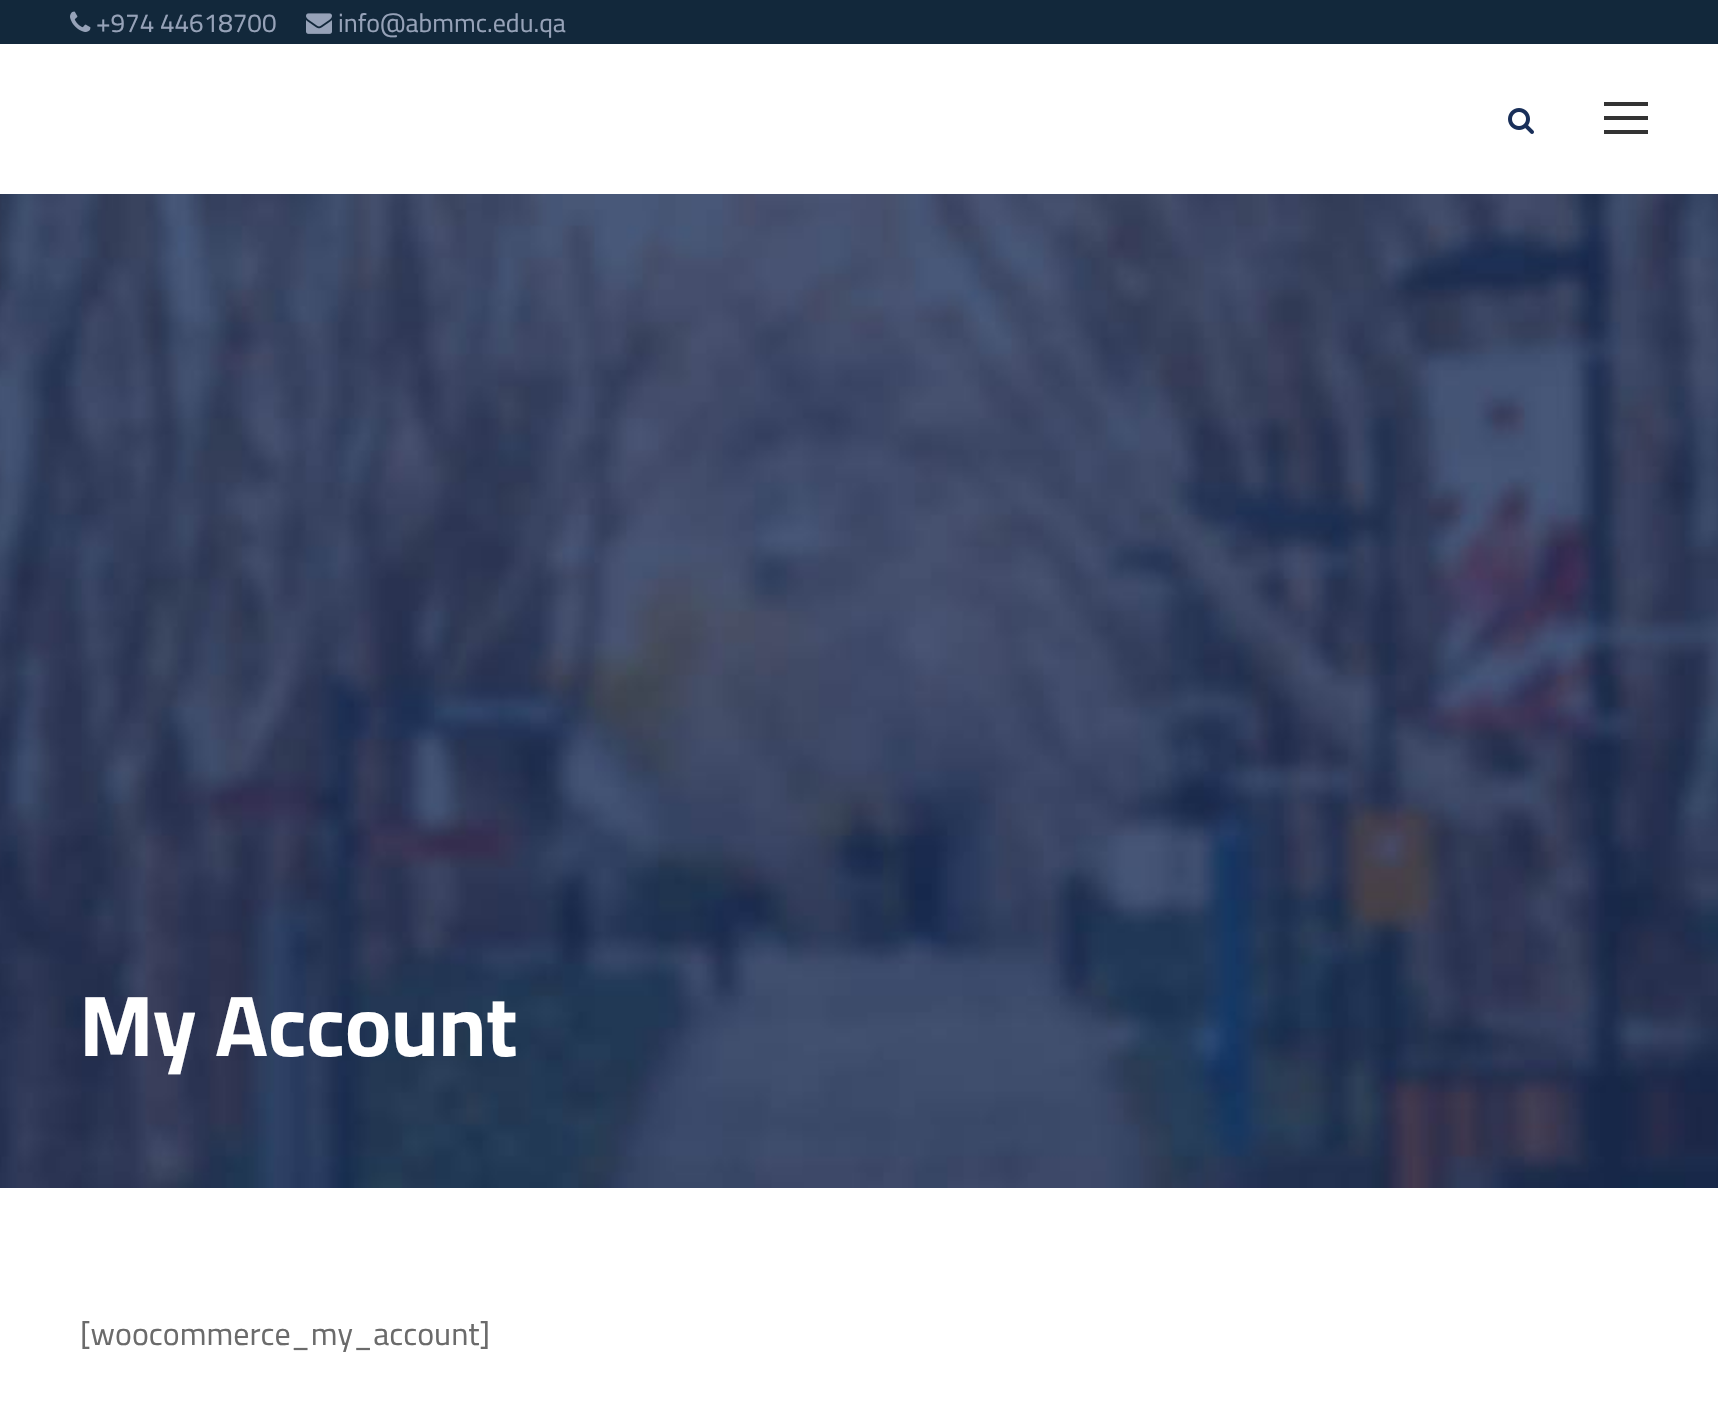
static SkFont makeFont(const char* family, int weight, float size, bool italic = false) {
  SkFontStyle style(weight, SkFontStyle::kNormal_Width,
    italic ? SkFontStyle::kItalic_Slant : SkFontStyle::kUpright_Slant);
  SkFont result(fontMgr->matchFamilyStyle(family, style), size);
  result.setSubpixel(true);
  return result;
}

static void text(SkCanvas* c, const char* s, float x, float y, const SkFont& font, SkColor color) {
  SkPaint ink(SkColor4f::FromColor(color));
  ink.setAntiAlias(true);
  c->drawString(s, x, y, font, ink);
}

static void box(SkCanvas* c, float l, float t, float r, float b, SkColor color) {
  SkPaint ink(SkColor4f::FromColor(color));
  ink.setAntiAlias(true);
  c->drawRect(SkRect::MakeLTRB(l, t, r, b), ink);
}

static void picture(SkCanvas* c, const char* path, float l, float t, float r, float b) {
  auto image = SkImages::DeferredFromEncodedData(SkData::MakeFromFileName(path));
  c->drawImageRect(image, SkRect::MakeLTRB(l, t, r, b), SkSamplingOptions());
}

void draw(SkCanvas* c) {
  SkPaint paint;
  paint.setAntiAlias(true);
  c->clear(0xffffffff);
  box(c, 0, 0, 1718, 44, 0xff12283b);
  picture(c, "img_01.png", 70, 11, 91, 32);
  SkFont face1 = makeFont("Cairo", 400, 26);
  text(c, "+974 44618700", 96, 32, face1, 0xff96a2b8);
  picture(c, "img_02.png", 306, 13, 332, 34);
  text(c, "info@abmmc.edu.qa", 338, 32, face1, 0xff96a2b8);
  picture(c, "img_03.png", 1508, 108, 1534, 134);
  box(c, 1604, 102, 1648, 106, 0xff333333);
  box(c, 1604, 116, 1648, 120, 0xff333333);
  box(c, 1604, 130, 1648, 134, 0xff333333);
  picture(c, "img_04.png", 0, 194, 1718, 1188);
  SkFont face2 = makeFont("Cairo", 700, 86);
  text(c, "My Account", 80, 1056, face2, 0xffffffff);
  SkFont face3 = makeFont("Cairo", 400, 32);
  text(c, "[woocommerce_my_account]", 80, 1345, face3, 0xff6b6b6b);
}
